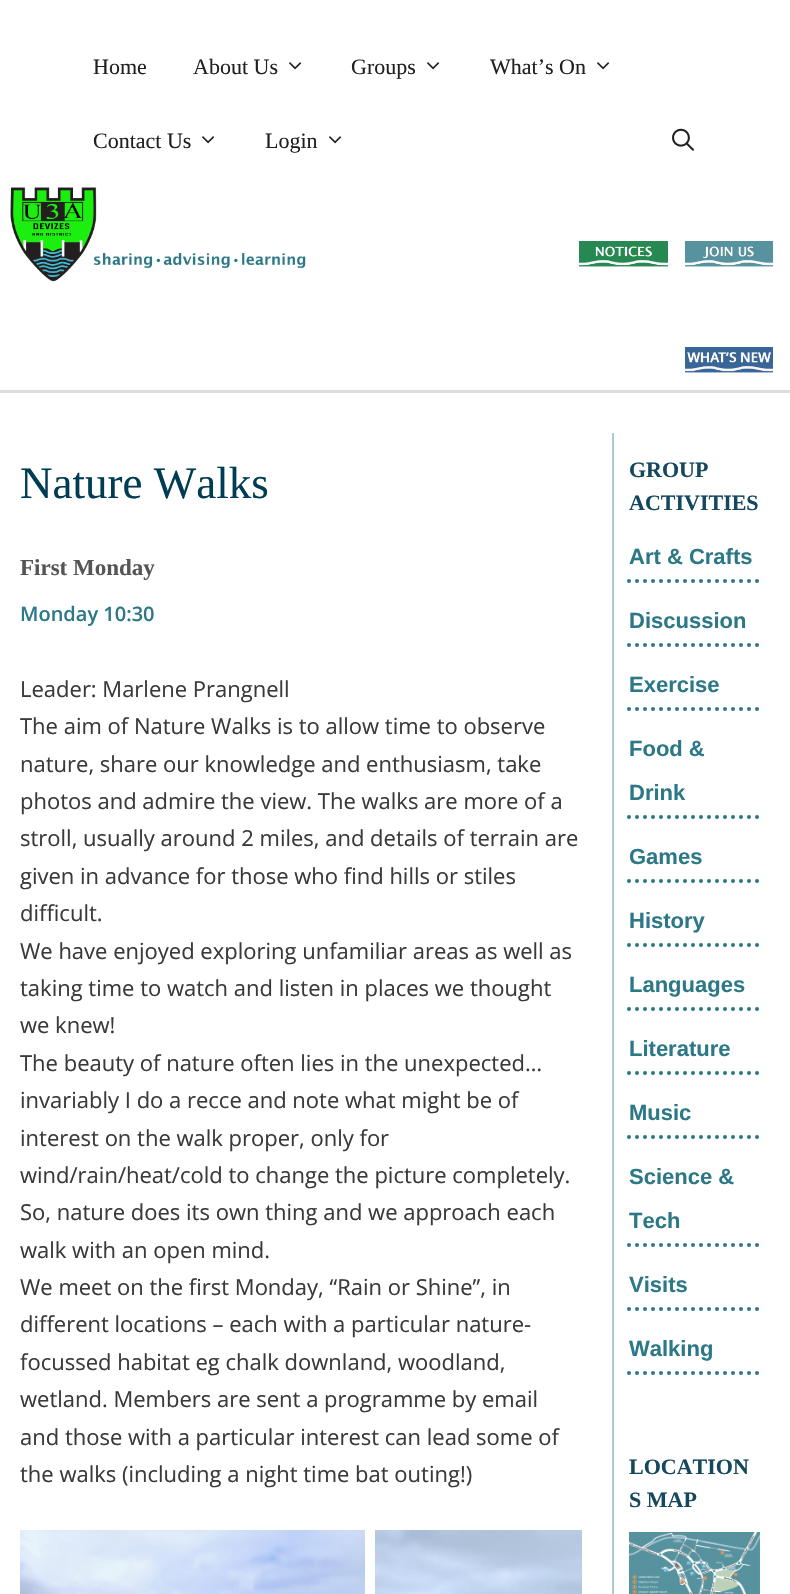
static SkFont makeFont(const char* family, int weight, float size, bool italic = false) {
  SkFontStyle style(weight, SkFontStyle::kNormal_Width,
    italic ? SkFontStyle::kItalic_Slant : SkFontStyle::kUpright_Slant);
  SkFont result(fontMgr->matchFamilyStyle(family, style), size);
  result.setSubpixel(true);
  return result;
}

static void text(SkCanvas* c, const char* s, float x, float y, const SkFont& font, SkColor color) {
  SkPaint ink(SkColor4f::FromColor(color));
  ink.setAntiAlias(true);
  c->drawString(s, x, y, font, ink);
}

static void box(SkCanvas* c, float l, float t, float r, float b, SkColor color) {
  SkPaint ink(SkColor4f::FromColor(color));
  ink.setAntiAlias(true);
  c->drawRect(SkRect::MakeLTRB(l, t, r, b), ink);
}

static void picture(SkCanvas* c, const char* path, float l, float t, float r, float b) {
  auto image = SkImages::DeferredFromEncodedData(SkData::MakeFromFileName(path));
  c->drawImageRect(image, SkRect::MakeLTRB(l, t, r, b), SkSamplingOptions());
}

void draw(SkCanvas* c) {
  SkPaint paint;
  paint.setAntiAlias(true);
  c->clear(0xffffffff);
  SkFont face1 = makeFont("Liberation Serif", 400, 22);
  text(c, "Home", 93, 74, face1, 0xff221f20);
  text(c, "About Us", 193, 74, face1, 0xff221f20);
  picture(c, "img_01.png", 289, 62, 302, 70);
  text(c, "Groups", 351, 74, face1, 0xff221f20);
  picture(c, "img_01.png", 427, 62, 440, 70);
  text(c, "What’s On", 490, 74, face1, 0xff221f20);
  picture(c, "img_01.png", 597, 62, 610, 70);
  text(c, "Contact Us", 93, 148, face1, 0xff221f20);
  picture(c, "img_01.png", 202, 136, 215, 144);
  text(c, "Login", 265, 148, face1, 0xff221f20);
  picture(c, "img_01.png", 329, 136, 342, 144);
  picture(c, "img_02.png", 672, 128, 694, 151);
  box(c, 0, 390, 790, 393, 0xffdddddd);
  picture(c, "img_03.png", 10, 187, 306, 282);
  picture(c, "img_04.png", 579, 241, 668, 267);
  picture(c, "img_05.png", 685, 241, 773, 267);
  picture(c, "img_06.png", 685, 347, 773, 373);
  SkFont face2 = makeFont("Liberation Serif", 400, 45);
  text(c, "Nature Walks", 20, 498, face2, 0xff003d54);
  SkFont face3 = makeFont("Liberation Serif", 700, 23);
  text(c, "First Monday", 20, 575, face3, 0xff555555);
  SkFont face4 = makeFont("Open Sans", 600, 20);
  text(c, "Monday 10:30", 20, 621, face4, 0xff2c7887);
  SkFont face5 = makeFont("Open Sans", 400, 22);
  text(c, "Leader: Marlene Prangnell", 20, 697, face5, 0xff3a3a3a);
  text(c, "The aim of Nature Walks is to allow time to observe", 20, 734, face5, 0xff3a3a3a);
  text(c, "nature, share our knowledge and enthusiasm, take", 20, 772, face5, 0xff3a3a3a);
  text(c, "photos and admire the view. The walks are more of a", 20, 809, face5, 0xff3a3a3a);
  text(c, "stroll, usually around 2 miles, and details of terrain are", 20, 846, face5, 0xff3a3a3a);
  text(c, "given in advance for those who find hills or stiles", 20, 884, face5, 0xff3a3a3a);
  text(c, "difficult.", 20, 921, face5, 0xff3a3a3a);
  text(c, "We have enjoyed exploring unfamiliar areas as well as", 20, 959, face5, 0xff3a3a3a);
  text(c, "taking time to watch and listen in places we thought", 20, 996, face5, 0xff3a3a3a);
  text(c, "we knew!", 20, 1033, face5, 0xff3a3a3a);
  text(c, "The beauty of nature often lies in the unexpected…", 20, 1071, face5, 0xff3a3a3a);
  text(c, "invariably I do a recce and note what might be of", 20, 1108, face5, 0xff3a3a3a);
  text(c, "interest on the walk proper, only for", 20, 1146, face5, 0xff3a3a3a);
  text(c, "wind/rain/heat/cold to change the picture completely.", 20, 1183, face5, 0xff3a3a3a);
  text(c, "So, nature does its own thing and we approach each", 20, 1220, face5, 0xff3a3a3a);
  text(c, "walk with an open mind.", 20, 1258, face5, 0xff3a3a3a);
  text(c, "We meet on the first Monday, “Rain or Shine”, in", 20, 1295, face5, 0xff3a3a3a);
  text(c, "different locations – each with a particular nature-", 20, 1332, face5, 0xff3a3a3a);
  text(c, "focussed habitat eg chalk downland, woodland,", 20, 1370, face5, 0xff3a3a3a);
  text(c, "wetland. Members are sent a programme by email", 20, 1407, face5, 0xff3a3a3a);
  text(c, "and those with a particular interest can lead some of", 20, 1445, face5, 0xff3a3a3a);
  text(c, "the walks (including a night time bat outing!)", 20, 1482, face5, 0xff3a3a3a);
  picture(c, "img_07.png", 20, 1530, 365, 1594);
  picture(c, "img_08.png", 375, 1530, 582, 1594);
  box(c, 612, 433, 614, 1594, 0xffafcace);
  SkFont face6 = makeFont("Liberation Serif", 700, 22);
  text(c, "GROUP", 629, 477, face6, 0xff15485e);
  text(c, "ACTIVITIES", 629, 510, face6, 0xff15485e);
  paint.setStyle(SkPaint::kStroke_Style);
  paint.setStrokeWidth(4);
  paint.setStrokeCap(SkPaint::kRound_Cap);
  paint.setColor(0xff2c7887);
  paint.setPathEffect(SkDashPathEffect::Make({{0, 8}}, 0));
  c->drawPath(SkPathBuilder().moveTo(629, 581).lineTo(760, 581).detach(), paint);
  paint.setPathEffect(nullptr);
  SkFont face7 = makeFont("Liberation Sans", 700, 22);
  text(c, "Art & Crafts", 629, 564, face7, 0xff2c7887);
  paint.setPathEffect(SkDashPathEffect::Make({{0, 8}}, 0));
  c->drawPath(SkPathBuilder().moveTo(629, 645).lineTo(760, 645).detach(), paint);
  paint.setPathEffect(nullptr);
  text(c, "Discussion", 629, 628, face7, 0xff2c7887);
  paint.setPathEffect(SkDashPathEffect::Make({{0, 8}}, 0));
  c->drawPath(SkPathBuilder().moveTo(629, 709).lineTo(760, 709).detach(), paint);
  paint.setPathEffect(nullptr);
  text(c, "Exercise", 629, 692, face7, 0xff2c7887);
  paint.setPathEffect(SkDashPathEffect::Make({{0, 8}}, 0));
  c->drawPath(SkPathBuilder().moveTo(629, 817).lineTo(760, 817).detach(), paint);
  paint.setPathEffect(nullptr);
  text(c, "Food &", 629, 756, face7, 0xff2c7887);
  text(c, "Drink", 629, 800, face7, 0xff2c7887);
  paint.setPathEffect(SkDashPathEffect::Make({{0, 8}}, 0));
  c->drawPath(SkPathBuilder().moveTo(629, 881).lineTo(760, 881).detach(), paint);
  paint.setPathEffect(nullptr);
  text(c, "Games", 629, 864, face7, 0xff2c7887);
  paint.setPathEffect(SkDashPathEffect::Make({{0, 8}}, 0));
  c->drawPath(SkPathBuilder().moveTo(629, 945).lineTo(760, 945).detach(), paint);
  paint.setPathEffect(nullptr);
  text(c, "History", 629, 928, face7, 0xff2c7887);
  paint.setPathEffect(SkDashPathEffect::Make({{0, 8}}, 0));
  c->drawPath(SkPathBuilder().moveTo(629, 1009).lineTo(760, 1009).detach(), paint);
  paint.setPathEffect(nullptr);
  text(c, "Languages", 629, 992, face7, 0xff2c7887);
  paint.setPathEffect(SkDashPathEffect::Make({{0, 8}}, 0));
  c->drawPath(SkPathBuilder().moveTo(629, 1073).lineTo(760, 1073).detach(), paint);
  paint.setPathEffect(nullptr);
  text(c, "Literature", 629, 1056, face7, 0xff2c7887);
  paint.setPathEffect(SkDashPathEffect::Make({{0, 8}}, 0));
  c->drawPath(SkPathBuilder().moveTo(629, 1137).lineTo(760, 1137).detach(), paint);
  paint.setPathEffect(nullptr);
  text(c, "Music", 629, 1120, face7, 0xff2c7887);
  paint.setPathEffect(SkDashPathEffect::Make({{0, 8}}, 0));
  c->drawPath(SkPathBuilder().moveTo(629, 1245).lineTo(760, 1245).detach(), paint);
  paint.setPathEffect(nullptr);
  text(c, "Science &", 629, 1184, face7, 0xff2c7887);
  text(c, "Tech", 629, 1228, face7, 0xff2c7887);
  paint.setPathEffect(SkDashPathEffect::Make({{0, 8}}, 0));
  c->drawPath(SkPathBuilder().moveTo(629, 1309).lineTo(760, 1309).detach(), paint);
  paint.setPathEffect(nullptr);
  text(c, "Visits", 629, 1292, face7, 0xff2c7887);
  paint.setPathEffect(SkDashPathEffect::Make({{0, 8}}, 0));
  c->drawPath(SkPathBuilder().moveTo(629, 1373).lineTo(760, 1373).detach(), paint);
  paint.setPathEffect(nullptr);
  text(c, "Walking", 629, 1356, face7, 0xff2c7887);
  text(c, "LOCATION", 629, 1474, face6, 0xff15485e);
  text(c, "S MAP", 629, 1507, face6, 0xff15485e);
  picture(c, "img_09.png", 629, 1532, 760, 1594);
}
